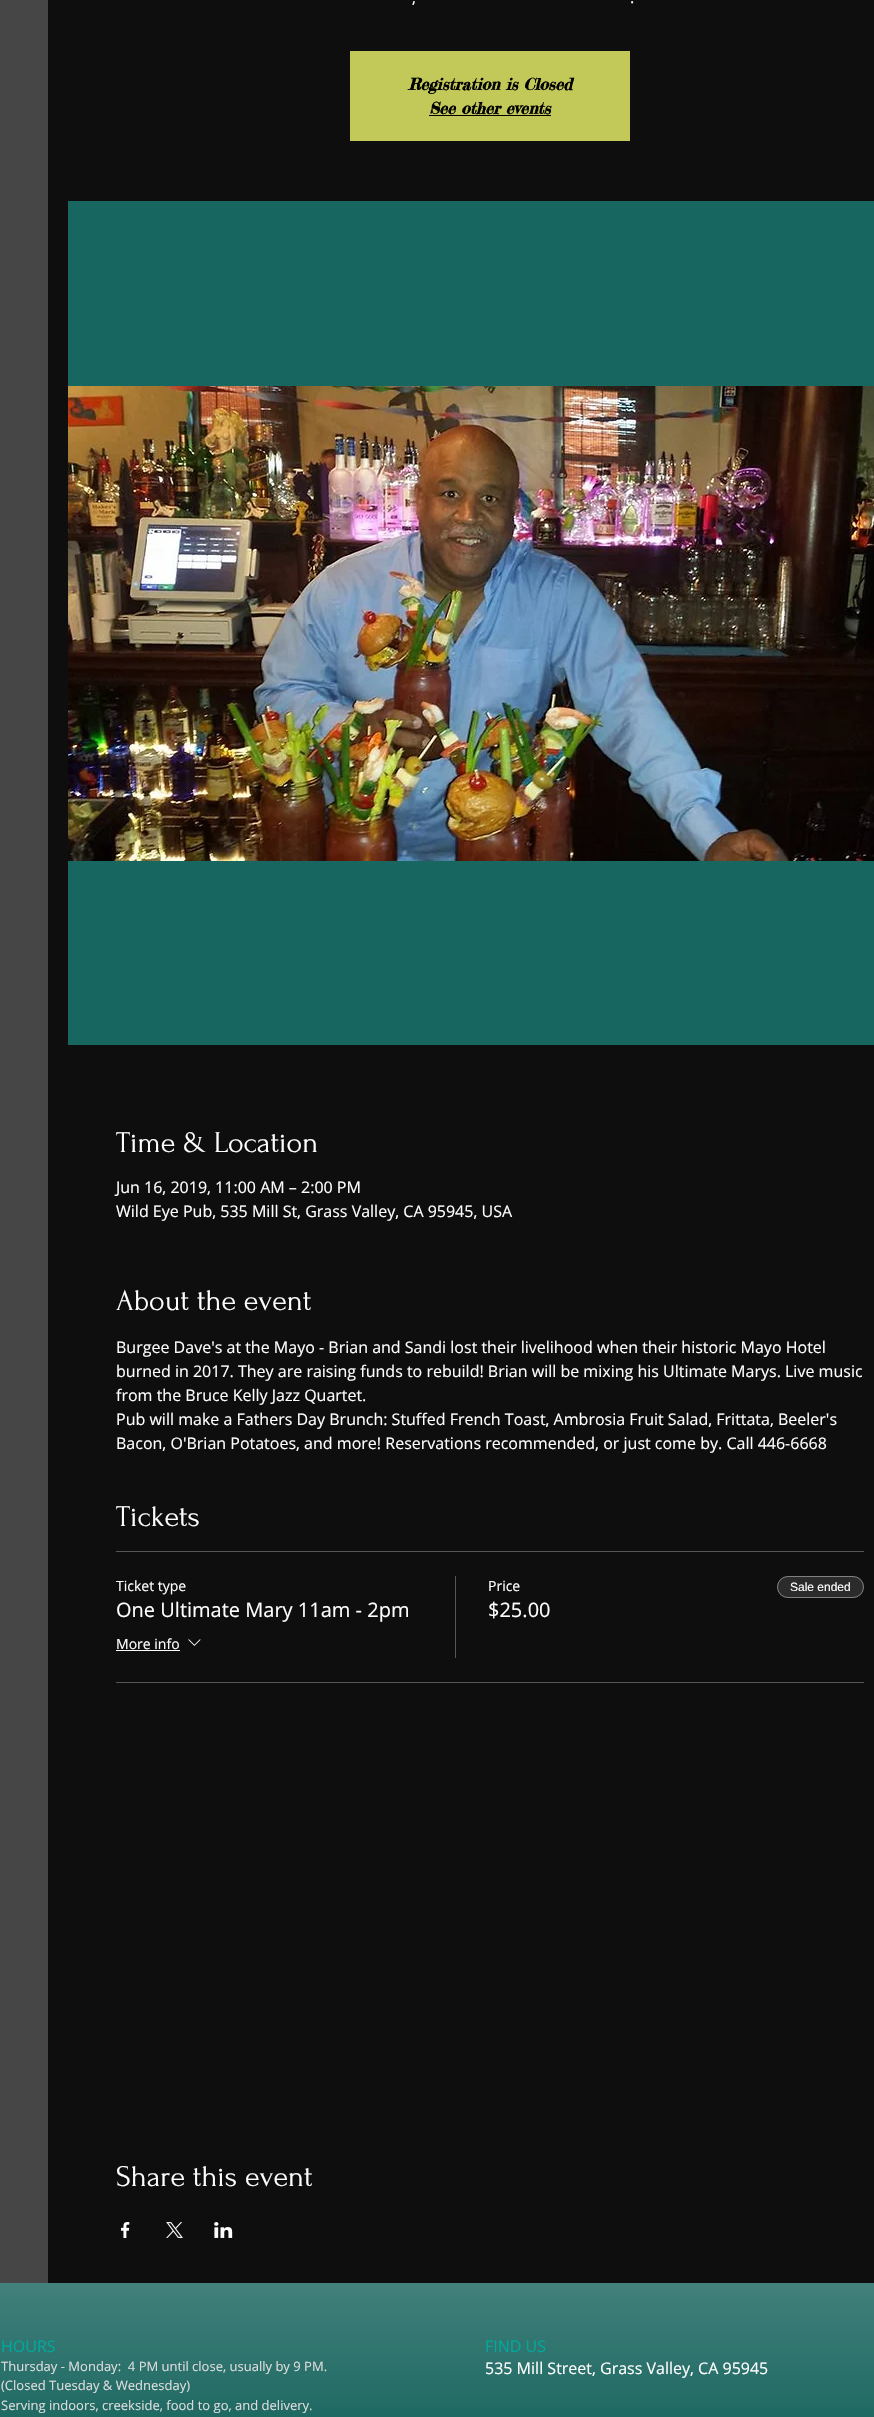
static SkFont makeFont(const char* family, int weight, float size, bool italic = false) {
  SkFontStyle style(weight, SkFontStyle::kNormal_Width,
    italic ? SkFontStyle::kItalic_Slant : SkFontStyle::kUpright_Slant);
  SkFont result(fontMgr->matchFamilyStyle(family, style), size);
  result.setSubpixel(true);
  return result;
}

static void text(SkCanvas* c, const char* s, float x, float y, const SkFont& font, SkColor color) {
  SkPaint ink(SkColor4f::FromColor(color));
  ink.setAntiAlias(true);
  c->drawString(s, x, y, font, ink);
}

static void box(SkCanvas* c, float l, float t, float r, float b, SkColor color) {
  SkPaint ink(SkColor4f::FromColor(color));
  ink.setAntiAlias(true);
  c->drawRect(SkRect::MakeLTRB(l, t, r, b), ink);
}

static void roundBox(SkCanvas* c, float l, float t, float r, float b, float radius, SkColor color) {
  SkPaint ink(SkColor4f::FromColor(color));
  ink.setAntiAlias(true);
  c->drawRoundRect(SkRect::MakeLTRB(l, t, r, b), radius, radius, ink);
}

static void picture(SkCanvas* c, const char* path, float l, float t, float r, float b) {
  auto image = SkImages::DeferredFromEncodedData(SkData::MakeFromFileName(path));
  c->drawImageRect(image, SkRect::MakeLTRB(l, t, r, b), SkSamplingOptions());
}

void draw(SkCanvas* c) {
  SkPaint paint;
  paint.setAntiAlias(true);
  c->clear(0xff474646);
  box(c, 48, 0, 874, 2283, 0xff0e0e0e);
  SkFont face1 = makeFont("Open Sans", 400, 16);
  text(c, ",", 412, 3, face1, 0xffffffff);
  text(c, ".", 630, 3, face1, 0xffffffff);
  box(c, 350, 51, 630, 141, 0xffc3c958);
  SkFont face2 = makeFont("Fredericka the Great", 700, 16, true);
  text(c, "Registration is Closed", 408, 90, face2, 0xff000000);
  text(c, "See other events", 429, 114, face2, 0xff000000);
  box(c, 429, 115, 551, 116, 0xff000000);
  box(c, 68, 201, 874, 1045, 0xff176760);
  picture(c, "img_01.png", 68, 386, 874, 861);
  SkFont face3 = makeFont("Forum", 400, 30);
  text(c, "Time & Location", 116, 1152, face3, 0xffffffff);
  text(c, "Jun 16, 2019, 11:00 AM – 2:00 PM", 116, 1193, face1, 0xffffffff);
  text(c, "Wild Eye Pub, 535 Mill St, Grass Valley, CA 95945, USA", 116, 1217, face1, 0xffffffff);
  text(c, "About the event", 116, 1310, face3, 0xffffffff);
  text(c, "Burgee Dave's at the Mayo - Brian and Sandi lost their livelihood when their historic Mayo Hotel", 116, 1353, face1, 0xffffffff);
  text(c, "burned in 2017. They are raising funds to rebuild! Brian will be mixing his Ultimate Marys. Live music", 116, 1377, face1, 0xffffffff);
  text(c, "from the Bruce Kelly Jazz Quartet.", 116, 1401, face1, 0xffffffff);
  text(c, "Pub will make a Fathers Day Brunch: Stuffed French Toast, Ambrosia Fruit Salad, Frittata, Beeler's", 116, 1425, face1, 0xffffffff);
  text(c, "Bacon, O'Brian Potatoes, and more! Reservations recommended, or just come by. Call 446-6668", 116, 1449, face1, 0xffffffff);
  text(c, "Tickets", 116, 1526, face3, 0xffffffff);
  box(c, 116, 1551, 864, 1552, 0xff565656);
  box(c, 116, 1682, 864, 1683, 0xff565656);
  SkFont face4 = makeFont("Open Sans", 400, 14);
  text(c, "Ticket type", 116, 1591, face4, 0xffffffff);
  SkFont face5 = makeFont("Open Sans", 400, 20);
  text(c, "One Ultimate Mary 11am - 2pm", 116, 1617, face5, 0xffffffff);
  text(c, "More info", 116, 1649, face4, 0xffffffff);
  box(c, 116, 1650, 180, 1651, 0xffffffff);
  picture(c, "img_02.png", 188, 1639, 201, 1646);
  box(c, 455, 1576, 456, 1658, 0xff565656);
  text(c, "Price", 488, 1591, face4, 0xffffffff);
  text(c, "$25.00", 488, 1617, face5, 0xffffffff);
  roundBox(c, 777, 1576, 864, 1598, 11, 0xff2b2b2b);
  paint.setStyle(SkPaint::kStroke_Style);
  paint.setStrokeWidth(1);
  paint.setColor(0x66ffffff);
  c->drawRoundRect(SkRect::MakeLTRB(777.5f, 1576.5f, 863.5f, 1597.5f), 10.5f, 10.5f, paint);
  SkFont face6 = makeFont("Liberation Sans", 400, 12);
  text(c, "Sale ended", 790, 1591, face6, 0xffffffff);
  text(c, "Share this event", 116, 2186, face3, 0xffffffff);
  picture(c, "img_03.png", 121, 2222, 130, 2238);
  picture(c, "img_04.png", 166, 2222, 183, 2238);
  picture(c, "img_05.png", 214, 2222, 233, 2238);
  box(c, 0, 2283, 874, 2417, 0xff00544d);
  picture(c, "img_06.png", 0, 2283, 874, 2417);
  text(c, "HOURS", 1, 2352, face1, 0xff00a99d);
  SkFont face7 = makeFont("Open Sans", 400, 13);
  text(c, "Thursday - Monday:  4 PM until close, usually by 9 PM.", 1, 2371, face7, 0xffdedddd);
  text(c, "(Closed Tuesday & Wednesday)", 1, 2390, face7, 0xffdedddd);
  text(c, "Serving indoors, creekside, food to go, and delivery.", 1, 2410, face7, 0xffdedddd);
  text(c, "FIND US", 485, 2352, face1, 0xff00a99d);
  text(c, "535 Mill Street, Grass Valley, CA 95945", 485, 2374, face1, 0xffffffff);
}
